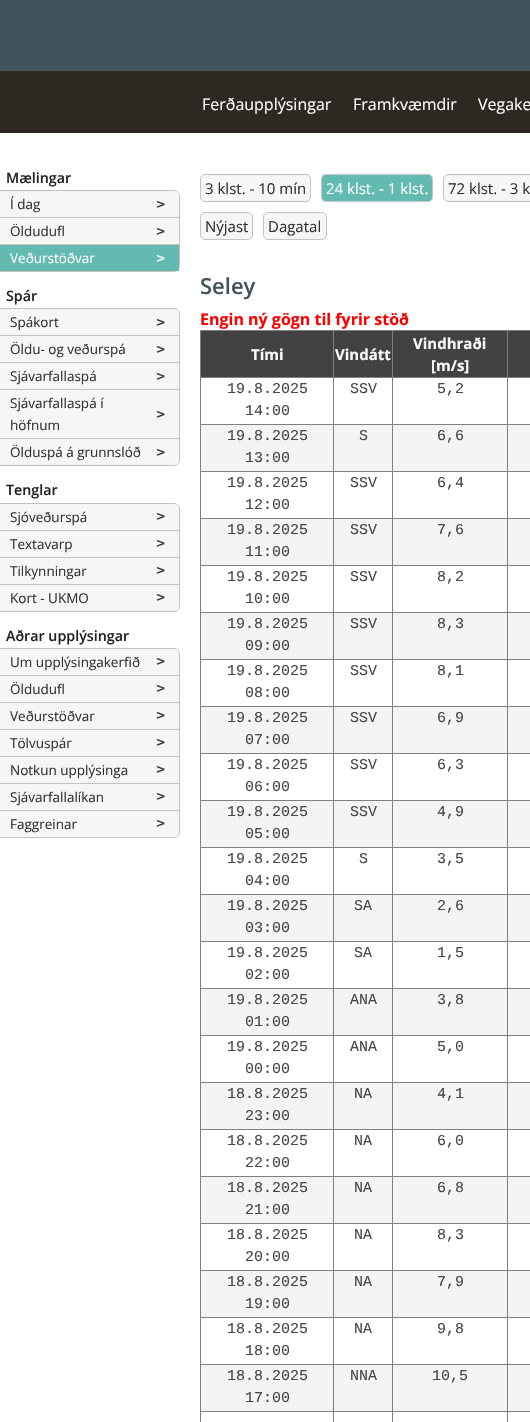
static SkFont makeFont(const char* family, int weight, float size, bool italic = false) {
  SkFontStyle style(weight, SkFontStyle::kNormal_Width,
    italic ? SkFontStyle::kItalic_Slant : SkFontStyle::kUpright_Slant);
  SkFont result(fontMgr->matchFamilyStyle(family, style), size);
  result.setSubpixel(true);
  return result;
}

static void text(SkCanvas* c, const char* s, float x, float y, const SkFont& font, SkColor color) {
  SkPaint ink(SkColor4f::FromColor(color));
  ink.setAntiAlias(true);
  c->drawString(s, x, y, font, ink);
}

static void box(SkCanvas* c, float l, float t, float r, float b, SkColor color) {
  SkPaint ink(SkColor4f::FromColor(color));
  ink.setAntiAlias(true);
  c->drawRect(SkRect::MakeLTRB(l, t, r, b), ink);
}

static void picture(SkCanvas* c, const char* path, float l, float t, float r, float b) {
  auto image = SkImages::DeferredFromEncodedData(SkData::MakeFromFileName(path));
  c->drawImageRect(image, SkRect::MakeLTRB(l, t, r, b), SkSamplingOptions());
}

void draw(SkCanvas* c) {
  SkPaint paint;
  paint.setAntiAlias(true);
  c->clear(0xffffffff);
  picture(c, "img_01.png", 0, 0, 530, 133);
  SkFont face1 = makeFont("Open Sans", 400, 16);
  text(c, "Ferðaupplýsingar", 202, 110, face1, 0xfffafafa);
  text(c, "Framkvæmdir", 353, 110, face1, 0xfffafafa);
  text(c, "Vegake", 478, 110, face1, 0xfffafafa);
  SkFont face2 = makeFont("Open Sans", 600, 14.25f);
  text(c, "Mælingar", 6, 183, face2, 0xff222222);
  paint.setColor(0xfff6f6f6);
  c->drawPath(SkPathBuilder().moveTo(0, 191).lineTo(174, 191).cubicTo(177, 191, 179, 193, 179, 196).lineTo(179, 217).lineTo(0, 217).close().detach(), paint);
  paint.setColor(0xffc3c3c3);
  c->drawPath(SkPathBuilder(SkPathFillType::kEvenOdd).moveTo(0, 190).lineTo(174, 190).cubicTo(177, 190, 180, 193, 180, 196).lineTo(180, 218).lineTo(0, 218).close().moveTo(0, 191).lineTo(174, 191).cubicTo(177, 191, 179, 193, 179, 196).lineTo(179, 217).lineTo(0, 217).close().detach(), paint);
  picture(c, "img_02.png", 156, 201, 165, 208);
  SkFont face3 = makeFont("Open Sans", 400, 13.5f);
  text(c, "Í dag", 10, 209, face3, 0xff333333);
  box(c, 0, 218, 179, 244, 0xfff6f6f6);
  box(c, 179, 218, 180, 245, 0xffc3c3c3);
  box(c, 0, 244, 180, 245, 0xffc3c3c3);
  picture(c, "img_02.png", 156, 228, 165, 235);
  text(c, "Öldudufl", 10, 236, face3, 0xff333333);
  c->drawPath(SkPathBuilder(SkPathFillType::kEvenOdd).moveTo(0, 245).lineTo(180, 245).lineTo(180, 266).cubicTo(180, 269, 177, 272, 174, 272).lineTo(0, 272).close().moveTo(0, 245).lineTo(179, 245).lineTo(179, 266).cubicTo(179, 269, 177, 271, 174, 271).lineTo(0, 271).close().detach(), paint);
  box(c, 0, 245, 179, 271, 0xff62bab1);
  picture(c, "img_03.png", 156, 255, 165, 262);
  text(c, "Veðurstöðvar", 10, 263, face3, 0xfffafafa);
  text(c, "Spár", 6, 301, face2, 0xff222222);
  paint.setColor(0xfff6f6f6);
  c->drawPath(SkPathBuilder().moveTo(0, 309).lineTo(174, 309).cubicTo(177, 309, 179, 311, 179, 314).lineTo(179, 335).lineTo(0, 335).close().detach(), paint);
  paint.setColor(0xffc3c3c3);
  c->drawPath(SkPathBuilder(SkPathFillType::kEvenOdd).moveTo(0, 308).lineTo(174, 308).cubicTo(177, 308, 180, 311, 180, 314).lineTo(180, 336).lineTo(0, 336).close().moveTo(0, 309).lineTo(174, 309).cubicTo(177, 309, 179, 311, 179, 314).lineTo(179, 335).lineTo(0, 335).close().detach(), paint);
  picture(c, "img_02.png", 156, 319, 165, 326);
  text(c, "Spákort", 10, 327, face3, 0xff333333);
  box(c, 0, 336, 179, 362, 0xfff6f6f6);
  box(c, 179, 336, 180, 439, 0xffc3c3c3);
  box(c, 0, 362, 180, 363, 0xffc3c3c3);
  picture(c, "img_02.png", 156, 346, 165, 353);
  text(c, "Öldu- og veðurspá", 10, 354, face3, 0xff333333);
  box(c, 0, 363, 179, 389, 0xfff6f6f6);
  box(c, 0, 389, 180, 390, 0xffc3c3c3);
  picture(c, "img_02.png", 156, 373, 165, 380);
  text(c, "Sjávarfallaspá", 10, 381, face3, 0xff333333);
  box(c, 0, 390, 179, 438, 0xfff6f6f6);
  box(c, 0, 438, 180, 439, 0xffc3c3c3);
  picture(c, "img_02.png", 156, 411, 165, 418);
  text(c, "Sjávarfallaspá í", 10, 408, face3, 0xff333333);
  text(c, "höfnum", 10, 430, face3, 0xff333333);
  paint.setColor(0xfff6f6f6);
  c->drawPath(SkPathBuilder().moveTo(0, 439).lineTo(179, 439).lineTo(179, 460).cubicTo(179, 463, 177, 465, 174, 465).lineTo(0, 465).close().detach(), paint);
  paint.setColor(0xffc3c3c3);
  c->drawPath(SkPathBuilder(SkPathFillType::kEvenOdd).moveTo(0, 439).lineTo(180, 439).lineTo(180, 460).cubicTo(180, 463, 177, 466, 174, 466).lineTo(0, 466).close().moveTo(0, 439).lineTo(179, 439).lineTo(179, 460).cubicTo(179, 463, 177, 465, 174, 465).lineTo(0, 465).close().detach(), paint);
  picture(c, "img_02.png", 156, 449, 165, 456);
  text(c, "Ölduspá á grunnslóð", 10, 457, face3, 0xff333333);
  text(c, "Tenglar", 6, 495, face2, 0xff222222);
  paint.setColor(0xfff6f6f6);
  c->drawPath(SkPathBuilder().moveTo(0, 504).lineTo(174, 504).cubicTo(177, 504, 179, 506, 179, 509).lineTo(179, 530).lineTo(0, 530).close().detach(), paint);
  paint.setColor(0xffc3c3c3);
  c->drawPath(SkPathBuilder(SkPathFillType::kEvenOdd).moveTo(0, 503).lineTo(174, 503).cubicTo(177, 503, 180, 506, 180, 509).lineTo(180, 531).lineTo(0, 531).close().moveTo(0, 504).lineTo(174, 504).cubicTo(177, 504, 179, 506, 179, 509).lineTo(179, 530).lineTo(0, 530).close().detach(), paint);
  picture(c, "img_02.png", 156, 513, 165, 520);
  text(c, "Sjóveðurspá", 10, 522, face3, 0xff333333);
  box(c, 0, 531, 179, 557, 0xfff6f6f6);
  box(c, 179, 531, 180, 585, 0xffc3c3c3);
  box(c, 0, 557, 180, 558, 0xffc3c3c3);
  picture(c, "img_02.png", 156, 540, 165, 547);
  text(c, "Textavarp", 10, 549, face3, 0xff333333);
  box(c, 0, 558, 179, 584, 0xfff6f6f6);
  box(c, 0, 584, 180, 585, 0xffc3c3c3);
  picture(c, "img_02.png", 156, 567, 165, 574);
  text(c, "Tilkynningar", 10, 576, face3, 0xff333333);
  paint.setColor(0xfff6f6f6);
  c->drawPath(SkPathBuilder().moveTo(0, 585).lineTo(179, 585).lineTo(179, 606).cubicTo(179, 609, 177, 611, 174, 611).lineTo(0, 611).close().detach(), paint);
  paint.setColor(0xffc3c3c3);
  c->drawPath(SkPathBuilder(SkPathFillType::kEvenOdd).moveTo(0, 585).lineTo(180, 585).lineTo(180, 606).cubicTo(180, 609, 177, 612, 174, 612).lineTo(0, 612).close().moveTo(0, 585).lineTo(179, 585).lineTo(179, 606).cubicTo(179, 609, 177, 611, 174, 611).lineTo(0, 611).close().detach(), paint);
  picture(c, "img_02.png", 156, 594, 165, 601);
  text(c, "Kort - UKMO", 10, 603, face3, 0xff333333);
  text(c, "Aðrar upplýsingar", 6, 641, face2, 0xff222222);
  paint.setColor(0xfff6f6f6);
  c->drawPath(SkPathBuilder().moveTo(0, 649).lineTo(174, 649).cubicTo(177, 649, 179, 651, 179, 654).lineTo(179, 675).lineTo(0, 675).close().detach(), paint);
  paint.setColor(0xffc3c3c3);
  c->drawPath(SkPathBuilder(SkPathFillType::kEvenOdd).moveTo(0, 648).lineTo(174, 648).cubicTo(177, 648, 180, 651, 180, 654).lineTo(180, 676).lineTo(0, 676).close().moveTo(0, 649).lineTo(174, 649).cubicTo(177, 649, 179, 651, 179, 654).lineTo(179, 675).lineTo(0, 675).close().detach(), paint);
  picture(c, "img_02.png", 156, 658, 165, 665);
  text(c, "Um upplýsingakerfið", 10, 667, face3, 0xff333333);
  box(c, 0, 676, 179, 702, 0xfff6f6f6);
  box(c, 179, 676, 180, 811, 0xffc3c3c3);
  box(c, 0, 702, 180, 703, 0xffc3c3c3);
  picture(c, "img_02.png", 156, 685, 165, 692);
  text(c, "Öldudufl", 10, 694, face3, 0xff333333);
  box(c, 0, 703, 179, 729, 0xfff6f6f6);
  box(c, 0, 729, 180, 730, 0xffc3c3c3);
  picture(c, "img_02.png", 156, 712, 165, 719);
  text(c, "Veðurstöðvar", 10, 721, face3, 0xff333333);
  box(c, 0, 730, 179, 756, 0xfff6f6f6);
  box(c, 0, 756, 180, 757, 0xffc3c3c3);
  picture(c, "img_02.png", 156, 739, 165, 746);
  text(c, "Tölvuspár", 10, 748, face3, 0xff333333);
  box(c, 0, 757, 179, 783, 0xfff6f6f6);
  box(c, 0, 783, 180, 784, 0xffc3c3c3);
  picture(c, "img_02.png", 156, 766, 165, 773);
  text(c, "Notkun upplýsinga", 10, 775, face3, 0xff333333);
  box(c, 0, 784, 179, 810, 0xfff6f6f6);
  box(c, 0, 810, 180, 811, 0xffc3c3c3);
  picture(c, "img_02.png", 156, 793, 165, 800);
  text(c, "Sjávarfallalíkan", 10, 802, face3, 0xff333333);
  paint.setColor(0xfff6f6f6);
  c->drawPath(SkPathBuilder().moveTo(0, 811).lineTo(179, 811).lineTo(179, 832).cubicTo(179, 835, 177, 837, 174, 837).lineTo(0, 837).close().detach(), paint);
  paint.setColor(0xffc3c3c3);
  c->drawPath(SkPathBuilder(SkPathFillType::kEvenOdd).moveTo(0, 811).lineTo(180, 811).lineTo(180, 832).cubicTo(180, 835, 177, 838, 174, 838).lineTo(0, 838).close().moveTo(0, 811).lineTo(179, 811).lineTo(179, 832).cubicTo(179, 835, 177, 837, 174, 837).lineTo(0, 837).close().detach(), paint);
  picture(c, "img_02.png", 156, 820, 165, 827);
  text(c, "Faggreinar", 10, 829, face3, 0xff333333);
  paint.setColor(0xfff6f6f6);
  c->drawRoundRect(SkRect::MakeLTRB(200.5f, 174.5f, 310.5f, 201.5f), 4.5f, 4.5f, paint);
  paint.setStyle(SkPaint::kStroke_Style);
  paint.setStrokeWidth(1);
  paint.setColor(0xffc3c3c3);
  c->drawRoundRect(SkRect::MakeLTRB(200.5f, 174.5f, 310.5f, 201.5f), 4.5f, 4.5f, paint);
  SkFont face4 = makeFont("Open Sans", 400, 15);
  text(c, "3 klst. - 10 mín", 205, 194, face4, 0xff333333);
  paint.setStyle(SkPaint::kFill_Style);
  paint.setColor(0xff62bab1);
  c->drawRoundRect(SkRect::MakeLTRB(321.5f, 174.5f, 432.5f, 201.5f), 4.5f, 4.5f, paint);
  paint.setStyle(SkPaint::kStroke_Style);
  paint.setColor(0xffc3c3c3);
  c->drawRoundRect(SkRect::MakeLTRB(321.5f, 174.5f, 432.5f, 201.5f), 4.5f, 4.5f, paint);
  text(c, "24 klst. - 1 klst.", 326, 194, face4, 0xfffafafa);
  paint.setStyle(SkPaint::kFill_Style);
  paint.setColor(0xfff6f6f6);
  c->drawRoundRect(SkRect::MakeLTRB(443.5f, 174.5f, 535.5f, 201.5f), 4.5f, 4.5f, paint);
  paint.setStyle(SkPaint::kStroke_Style);
  paint.setColor(0xffc3c3c3);
  c->drawRoundRect(SkRect::MakeLTRB(443.5f, 174.5f, 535.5f, 201.5f), 4.5f, 4.5f, paint);
  text(c, "72 klst. - 3 k", 448, 194, face4, 0xff333333);
  paint.setStyle(SkPaint::kFill_Style);
  paint.setColor(0xfff6f6f6);
  c->drawRoundRect(SkRect::MakeLTRB(200.5f, 212.5f, 252.5f, 239.5f), 4.5f, 4.5f, paint);
  paint.setStyle(SkPaint::kStroke_Style);
  paint.setColor(0xffc3c3c3);
  c->drawRoundRect(SkRect::MakeLTRB(200.5f, 212.5f, 252.5f, 239.5f), 4.5f, 4.5f, paint);
  text(c, "Nýjast", 205, 232, face4, 0xff333333);
  paint.setStyle(SkPaint::kFill_Style);
  paint.setColor(0xfff6f6f6);
  c->drawRoundRect(SkRect::MakeLTRB(263.5f, 212.5f, 326.5f, 239.5f), 4.5f, 4.5f, paint);
  paint.setStyle(SkPaint::kStroke_Style);
  paint.setColor(0xffc3c3c3);
  c->drawRoundRect(SkRect::MakeLTRB(263.5f, 212.5f, 326.5f, 239.5f), 4.5f, 4.5f, paint);
  text(c, "Dagatal", 268, 232, face4, 0xff333333);
  SkFont face5 = makeFont("Open Sans", 600, 22);
  text(c, "Seley", 200, 294, face5, 0xff41545c);
  SkFont face6 = makeFont("Open Sans", 700, 16);
  text(c, "Engin ný gögn til fyrir stöð", 200, 325, face6, 0xffff0000);
  box(c, 200, 330, 530, 331, 0xff808080);
  box(c, 200, 330, 201, 1422, 0xff808080);
  box(c, 201, 331, 333, 377, 0xff424242);
  SkFont face7 = makeFont("Open Sans", 700, 15);
  text(c, "Tími", 251, 360, face7, 0xfffafafa);
  box(c, 334, 331, 392, 377, 0xff424242);
  box(c, 507, 377, 530, 378, 0xff808080);
  box(c, 507, 424, 530, 425, 0xff808080);
  box(c, 201, 425, 530, 471, 0xfff4f4f4);
  box(c, 507, 471, 530, 472, 0xff808080);
  box(c, 507, 518, 530, 519, 0xff808080);
  box(c, 201, 519, 530, 565, 0xfff4f4f4);
  box(c, 507, 565, 530, 566, 0xff808080);
  box(c, 507, 612, 530, 613, 0xff808080);
  box(c, 201, 613, 530, 659, 0xfff4f4f4);
  box(c, 507, 659, 530, 660, 0xff808080);
  box(c, 507, 706, 530, 707, 0xff808080);
  box(c, 201, 707, 530, 753, 0xfff4f4f4);
  box(c, 507, 753, 530, 754, 0xff808080);
  box(c, 507, 800, 530, 801, 0xff808080);
  box(c, 201, 801, 530, 847, 0xfff4f4f4);
  box(c, 507, 847, 530, 848, 0xff808080);
  box(c, 507, 894, 530, 895, 0xff808080);
  box(c, 201, 895, 530, 941, 0xfff4f4f4);
  box(c, 507, 941, 530, 942, 0xff808080);
  box(c, 507, 988, 530, 989, 0xff808080);
  box(c, 201, 989, 530, 1035, 0xfff4f4f4);
  box(c, 507, 1035, 530, 1036, 0xff808080);
  box(c, 507, 1082, 530, 1083, 0xff808080);
  box(c, 201, 1083, 530, 1129, 0xfff4f4f4);
  box(c, 507, 1129, 530, 1130, 0xff808080);
  box(c, 507, 1176, 530, 1177, 0xff808080);
  box(c, 201, 1177, 530, 1223, 0xfff4f4f4);
  box(c, 507, 1223, 530, 1224, 0xff808080);
  box(c, 507, 1270, 530, 1271, 0xff808080);
  box(c, 201, 1271, 530, 1317, 0xfff4f4f4);
  box(c, 507, 1317, 530, 1318, 0xff808080);
  box(c, 507, 1364, 530, 1365, 0xff808080);
  box(c, 201, 1365, 530, 1411, 0xfff4f4f4);
  box(c, 507, 1411, 530, 1412, 0xff808080);
  box(c, 507, 1411, 508, 1422, 0xff808080);
  box(c, 392, 1411, 508, 1412, 0xff808080);
  box(c, 507, 1364, 508, 1412, 0xff808080);
  box(c, 392, 1364, 508, 1365, 0xff808080);
  box(c, 507, 1317, 508, 1365, 0xff808080);
  box(c, 392, 1317, 508, 1318, 0xff808080);
  box(c, 507, 1270, 508, 1318, 0xff808080);
  box(c, 392, 1270, 508, 1271, 0xff808080);
  box(c, 507, 1223, 508, 1271, 0xff808080);
  box(c, 392, 1223, 508, 1224, 0xff808080);
  box(c, 507, 1176, 508, 1224, 0xff808080);
  box(c, 392, 1176, 508, 1177, 0xff808080);
  box(c, 507, 1129, 508, 1177, 0xff808080);
  box(c, 392, 1129, 508, 1130, 0xff808080);
  box(c, 507, 1082, 508, 1130, 0xff808080);
  box(c, 392, 1082, 508, 1083, 0xff808080);
  box(c, 507, 1035, 508, 1083, 0xff808080);
  box(c, 392, 1035, 508, 1036, 0xff808080);
  box(c, 507, 988, 508, 1036, 0xff808080);
  box(c, 392, 988, 508, 989, 0xff808080);
  box(c, 507, 941, 508, 989, 0xff808080);
  box(c, 392, 941, 508, 942, 0xff808080);
  box(c, 507, 894, 508, 942, 0xff808080);
  box(c, 392, 894, 508, 895, 0xff808080);
  box(c, 507, 847, 508, 895, 0xff808080);
  box(c, 392, 847, 508, 848, 0xff808080);
  box(c, 507, 800, 508, 848, 0xff808080);
  box(c, 392, 800, 508, 801, 0xff808080);
  box(c, 507, 753, 508, 801, 0xff808080);
  box(c, 392, 753, 508, 754, 0xff808080);
  box(c, 507, 706, 508, 754, 0xff808080);
  box(c, 392, 706, 508, 707, 0xff808080);
  box(c, 507, 659, 508, 707, 0xff808080);
  box(c, 392, 659, 508, 660, 0xff808080);
  box(c, 507, 612, 508, 660, 0xff808080);
  box(c, 392, 612, 508, 613, 0xff808080);
  box(c, 507, 565, 508, 613, 0xff808080);
  box(c, 392, 565, 508, 566, 0xff808080);
  box(c, 507, 518, 508, 566, 0xff808080);
  box(c, 392, 518, 508, 519, 0xff808080);
  box(c, 507, 471, 508, 519, 0xff808080);
  box(c, 392, 471, 508, 472, 0xff808080);
  box(c, 507, 424, 508, 472, 0xff808080);
  box(c, 392, 424, 508, 425, 0xff808080);
  box(c, 507, 377, 508, 425, 0xff808080);
  box(c, 392, 377, 508, 378, 0xff808080);
  box(c, 392, 1411, 393, 1422, 0xff808080);
  box(c, 333, 1411, 393, 1412, 0xff808080);
  box(c, 392, 1364, 393, 1412, 0xff808080);
  box(c, 333, 1364, 393, 1365, 0xff808080);
  box(c, 392, 1317, 393, 1365, 0xff808080);
  box(c, 333, 1317, 393, 1318, 0xff808080);
  box(c, 392, 1270, 393, 1318, 0xff808080);
  box(c, 333, 1270, 393, 1271, 0xff808080);
  box(c, 392, 1223, 393, 1271, 0xff808080);
  box(c, 333, 1223, 393, 1224, 0xff808080);
  box(c, 392, 1176, 393, 1224, 0xff808080);
  box(c, 333, 1176, 393, 1177, 0xff808080);
  box(c, 392, 1129, 393, 1177, 0xff808080);
  box(c, 333, 1129, 393, 1130, 0xff808080);
  box(c, 392, 1082, 393, 1130, 0xff808080);
  box(c, 333, 1082, 393, 1083, 0xff808080);
  box(c, 392, 1035, 393, 1083, 0xff808080);
  box(c, 333, 1035, 393, 1036, 0xff808080);
  box(c, 392, 988, 393, 1036, 0xff808080);
  box(c, 333, 988, 393, 989, 0xff808080);
  box(c, 392, 941, 393, 989, 0xff808080);
  box(c, 333, 941, 393, 942, 0xff808080);
  box(c, 392, 894, 393, 942, 0xff808080);
  box(c, 333, 894, 393, 895, 0xff808080);
  box(c, 392, 847, 393, 895, 0xff808080);
  box(c, 333, 847, 393, 848, 0xff808080);
  box(c, 392, 800, 393, 848, 0xff808080);
  box(c, 333, 800, 393, 801, 0xff808080);
  box(c, 392, 753, 393, 801, 0xff808080);
  box(c, 333, 753, 393, 754, 0xff808080);
  box(c, 392, 706, 393, 754, 0xff808080);
  box(c, 333, 706, 393, 707, 0xff808080);
  box(c, 392, 659, 393, 707, 0xff808080);
  box(c, 333, 659, 393, 660, 0xff808080);
  box(c, 392, 612, 393, 660, 0xff808080);
  box(c, 333, 612, 393, 613, 0xff808080);
  box(c, 392, 565, 393, 613, 0xff808080);
  box(c, 333, 565, 393, 566, 0xff808080);
  box(c, 392, 518, 393, 566, 0xff808080);
  box(c, 333, 518, 393, 519, 0xff808080);
  box(c, 392, 471, 393, 519, 0xff808080);
  box(c, 333, 471, 393, 472, 0xff808080);
  box(c, 392, 424, 393, 472, 0xff808080);
  box(c, 333, 424, 393, 425, 0xff808080);
  box(c, 392, 377, 393, 425, 0xff808080);
  box(c, 333, 377, 393, 378, 0xff808080);
  box(c, 333, 1411, 334, 1422, 0xff808080);
  box(c, 200, 1411, 334, 1412, 0xff808080);
  box(c, 333, 1364, 334, 1412, 0xff808080);
  box(c, 200, 1364, 334, 1365, 0xff808080);
  box(c, 333, 1317, 334, 1365, 0xff808080);
  box(c, 200, 1317, 334, 1318, 0xff808080);
  box(c, 333, 1270, 334, 1318, 0xff808080);
  box(c, 200, 1270, 334, 1271, 0xff808080);
  box(c, 333, 1223, 334, 1271, 0xff808080);
  box(c, 200, 1223, 334, 1224, 0xff808080);
  box(c, 333, 1176, 334, 1224, 0xff808080);
  box(c, 200, 1176, 334, 1177, 0xff808080);
  box(c, 333, 1129, 334, 1177, 0xff808080);
  box(c, 200, 1129, 334, 1130, 0xff808080);
  box(c, 333, 1082, 334, 1130, 0xff808080);
  box(c, 200, 1082, 334, 1083, 0xff808080);
  box(c, 333, 1035, 334, 1083, 0xff808080);
  box(c, 200, 1035, 334, 1036, 0xff808080);
  box(c, 333, 988, 334, 1036, 0xff808080);
  box(c, 200, 988, 334, 989, 0xff808080);
  box(c, 333, 941, 334, 989, 0xff808080);
  box(c, 200, 941, 334, 942, 0xff808080);
  box(c, 333, 894, 334, 942, 0xff808080);
  box(c, 200, 894, 334, 895, 0xff808080);
  box(c, 333, 847, 334, 895, 0xff808080);
  box(c, 200, 847, 334, 848, 0xff808080);
  box(c, 333, 800, 334, 848, 0xff808080);
  box(c, 200, 800, 334, 801, 0xff808080);
  box(c, 333, 753, 334, 801, 0xff808080);
  box(c, 200, 753, 334, 754, 0xff808080);
  box(c, 333, 706, 334, 754, 0xff808080);
  box(c, 200, 706, 334, 707, 0xff808080);
  box(c, 333, 659, 334, 707, 0xff808080);
  box(c, 200, 659, 334, 660, 0xff808080);
  box(c, 333, 612, 334, 660, 0xff808080);
  box(c, 200, 612, 334, 613, 0xff808080);
  box(c, 333, 565, 334, 613, 0xff808080);
  box(c, 200, 565, 334, 566, 0xff808080);
  box(c, 333, 518, 334, 566, 0xff808080);
  box(c, 200, 518, 334, 519, 0xff808080);
  box(c, 333, 471, 334, 519, 0xff808080);
  box(c, 200, 471, 334, 472, 0xff808080);
  box(c, 333, 424, 334, 472, 0xff808080);
  box(c, 200, 424, 334, 425, 0xff808080);
  box(c, 333, 377, 334, 425, 0xff808080);
  box(c, 200, 377, 334, 378, 0xff808080);
  box(c, 333, 330, 334, 378, 0xff808080);
  text(c, "Vindátt", 335, 360, face7, 0xfffafafa);
  box(c, 393, 331, 507, 377, 0xff424242);
  box(c, 392, 330, 393, 378, 0xff808080);
  text(c, "Vindhraði", 413, 349, face7, 0xfffafafa);
  text(c, "[m/s]", 431, 371, face7, 0xfffafafa);
  box(c, 508, 331, 530, 377, 0xff424242);
  box(c, 507, 330, 508, 378, 0xff808080);
  SkFont face8 = makeFont("Liberation Mono", 400, 15);
  text(c, "19.8.2025", 227, 393, face8, 0xff474747);
  text(c, "14:00", 245, 415, face8, 0xff474747);
  text(c, "SSV", 350, 393, face8, 0xff474747);
  text(c, "5,2", 437, 393, face8, 0xff474747);
  text(c, "19.8.2025", 227, 440, face8, 0xff474747);
  text(c, "13:00", 245, 462, face8, 0xff474747);
  text(c, "S", 359, 440, face8, 0xff474747);
  text(c, "6,6", 437, 440, face8, 0xff474747);
  text(c, "19.8.2025", 227, 487, face8, 0xff474747);
  text(c, "12:00", 245, 509, face8, 0xff474747);
  text(c, "SSV", 350, 487, face8, 0xff474747);
  text(c, "6,4", 437, 487, face8, 0xff474747);
  text(c, "19.8.2025", 227, 534, face8, 0xff474747);
  text(c, "11:00", 245, 556, face8, 0xff474747);
  text(c, "SSV", 350, 534, face8, 0xff474747);
  text(c, "7,6", 437, 534, face8, 0xff474747);
  text(c, "19.8.2025", 227, 581, face8, 0xff474747);
  text(c, "10:00", 245, 603, face8, 0xff474747);
  text(c, "SSV", 350, 581, face8, 0xff474747);
  text(c, "8,2", 437, 581, face8, 0xff474747);
  text(c, "19.8.2025", 227, 628, face8, 0xff474747);
  text(c, "09:00", 245, 650, face8, 0xff474747);
  text(c, "SSV", 350, 628, face8, 0xff474747);
  text(c, "8,3", 437, 628, face8, 0xff474747);
  text(c, "19.8.2025", 227, 675, face8, 0xff474747);
  text(c, "08:00", 245, 697, face8, 0xff474747);
  text(c, "SSV", 350, 675, face8, 0xff474747);
  text(c, "8,1", 437, 675, face8, 0xff474747);
  text(c, "19.8.2025", 227, 722, face8, 0xff474747);
  text(c, "07:00", 245, 744, face8, 0xff474747);
  text(c, "SSV", 350, 722, face8, 0xff474747);
  text(c, "6,9", 437, 722, face8, 0xff474747);
  text(c, "19.8.2025", 227, 769, face8, 0xff474747);
  text(c, "06:00", 245, 791, face8, 0xff474747);
  text(c, "SSV", 350, 769, face8, 0xff474747);
  text(c, "6,3", 437, 769, face8, 0xff474747);
  text(c, "19.8.2025", 227, 816, face8, 0xff474747);
  text(c, "05:00", 245, 838, face8, 0xff474747);
  text(c, "SSV", 350, 816, face8, 0xff474747);
  text(c, "4,9", 437, 816, face8, 0xff474747);
  text(c, "19.8.2025", 227, 863, face8, 0xff474747);
  text(c, "04:00", 245, 885, face8, 0xff474747);
  text(c, "S", 359, 863, face8, 0xff474747);
  text(c, "3,5", 437, 863, face8, 0xff474747);
  text(c, "19.8.2025", 227, 910, face8, 0xff474747);
  text(c, "03:00", 245, 932, face8, 0xff474747);
  text(c, "SA", 354, 910, face8, 0xff474747);
  text(c, "2,6", 437, 910, face8, 0xff474747);
  text(c, "19.8.2025", 227, 957, face8, 0xff474747);
  text(c, "02:00", 245, 979, face8, 0xff474747);
  text(c, "SA", 354, 957, face8, 0xff474747);
  text(c, "1,5", 437, 957, face8, 0xff474747);
  text(c, "19.8.2025", 227, 1004, face8, 0xff474747);
  text(c, "01:00", 245, 1026, face8, 0xff474747);
  text(c, "ANA", 350, 1004, face8, 0xff474747);
  text(c, "3,8", 437, 1004, face8, 0xff474747);
  text(c, "19.8.2025", 227, 1051, face8, 0xff474747);
  text(c, "00:00", 245, 1073, face8, 0xff474747);
  text(c, "ANA", 350, 1051, face8, 0xff474747);
  text(c, "5,0", 437, 1051, face8, 0xff474747);
  text(c, "18.8.2025", 227, 1098, face8, 0xff474747);
  text(c, "23:00", 245, 1120, face8, 0xff474747);
  text(c, "NA", 354, 1098, face8, 0xff474747);
  text(c, "4,1", 437, 1098, face8, 0xff474747);
  text(c, "18.8.2025", 227, 1145, face8, 0xff474747);
  text(c, "22:00", 245, 1167, face8, 0xff474747);
  text(c, "NA", 354, 1145, face8, 0xff474747);
  text(c, "6,0", 437, 1145, face8, 0xff474747);
  text(c, "18.8.2025", 227, 1192, face8, 0xff474747);
  text(c, "21:00", 245, 1214, face8, 0xff474747);
  text(c, "NA", 354, 1192, face8, 0xff474747);
  text(c, "6,8", 437, 1192, face8, 0xff474747);
  text(c, "18.8.2025", 227, 1239, face8, 0xff474747);
  text(c, "20:00", 245, 1261, face8, 0xff474747);
  text(c, "NA", 354, 1239, face8, 0xff474747);
  text(c, "8,3", 437, 1239, face8, 0xff474747);
  text(c, "18.8.2025", 227, 1286, face8, 0xff474747);
  text(c, "19:00", 245, 1308, face8, 0xff474747);
  text(c, "NA", 354, 1286, face8, 0xff474747);
  text(c, "7,9", 437, 1286, face8, 0xff474747);
  text(c, "18.8.2025", 227, 1333, face8, 0xff474747);
  text(c, "18:00", 245, 1355, face8, 0xff474747);
  text(c, "NA", 354, 1333, face8, 0xff474747);
  text(c, "9,8", 437, 1333, face8, 0xff474747);
  text(c, "18.8.2025", 227, 1380, face8, 0xff474747);
  text(c, "17:00", 245, 1402, face8, 0xff474747);
  text(c, "NNA", 350, 1380, face8, 0xff474747);
  text(c, "10,5", 432, 1380, face8, 0xff474747);
}
